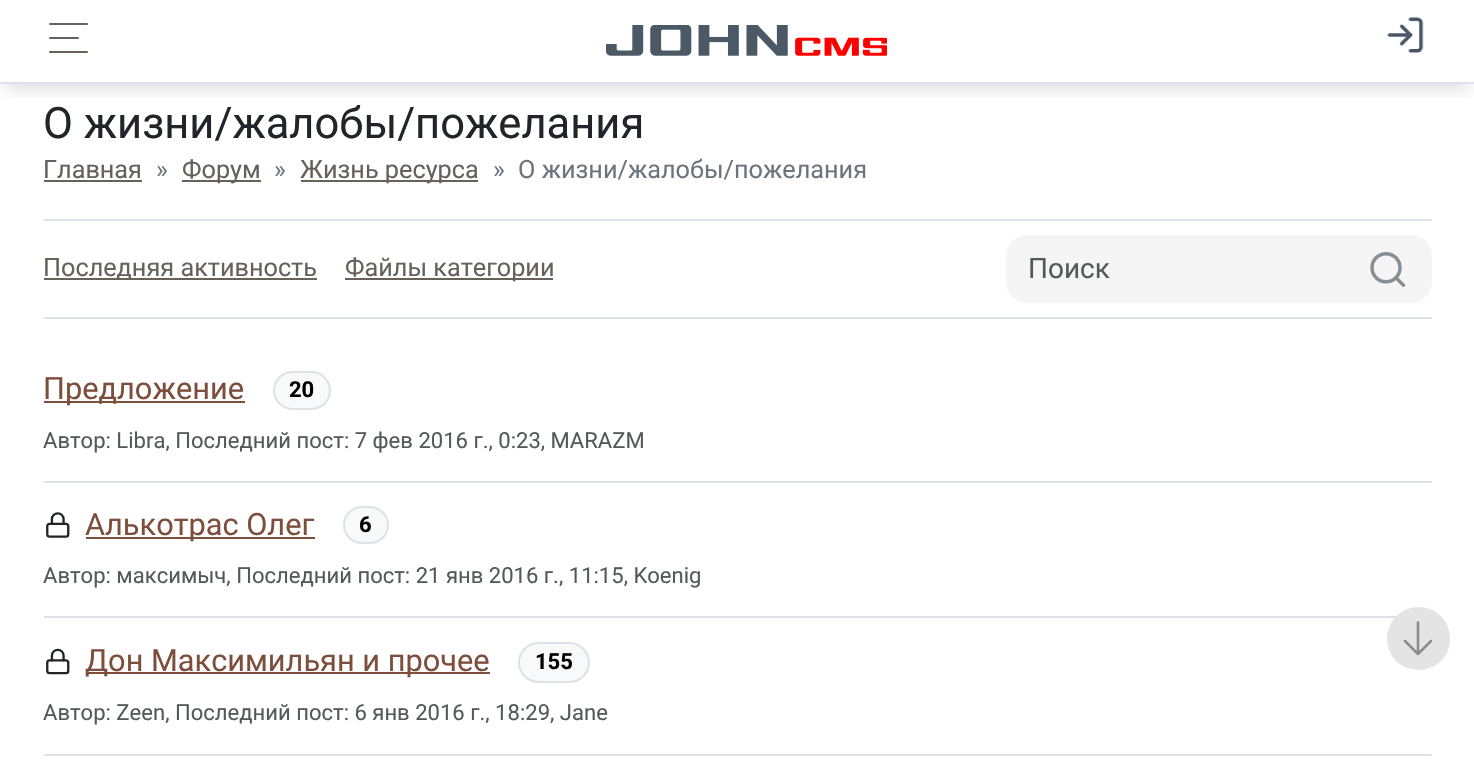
static SkFont makeFont(const char* family, int weight, float size, bool italic = false) {
  SkFontStyle style(weight, SkFontStyle::kNormal_Width,
    italic ? SkFontStyle::kItalic_Slant : SkFontStyle::kUpright_Slant);
  SkFont result(fontMgr->matchFamilyStyle(family, style), size);
  result.setSubpixel(true);
  return result;
}

static void text(SkCanvas* c, const char* s, float x, float y, const SkFont& font, SkColor color) {
  SkPaint ink(SkColor4f::FromColor(color));
  ink.setAntiAlias(true);
  c->drawString(s, x, y, font, ink);
}

static void box(SkCanvas* c, float l, float t, float r, float b, SkColor color) {
  SkPaint ink(SkColor4f::FromColor(color));
  ink.setAntiAlias(true);
  c->drawRect(SkRect::MakeLTRB(l, t, r, b), ink);
}

static void roundBox(SkCanvas* c, float l, float t, float r, float b, float radius, SkColor color) {
  SkPaint ink(SkColor4f::FromColor(color));
  ink.setAntiAlias(true);
  c->drawRoundRect(SkRect::MakeLTRB(l, t, r, b), radius, radius, ink);
}

static void picture(SkCanvas* c, const char* path, float l, float t, float r, float b) {
  auto image = SkImages::DeferredFromEncodedData(SkData::MakeFromFileName(path));
  c->drawImageRect(image, SkRect::MakeLTRB(l, t, r, b), SkSamplingOptions());
}

void draw(SkCanvas* c) {
  SkPaint paint;
  paint.setAntiAlias(true);
  c->clear(0xffffffff);
  c->save();
  c->clipRect(SkRect::MakeLTRB(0, 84, 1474, 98));
  paint.setColor(0x26000000);
  paint.setMaskFilter(SkMaskFilter::MakeBlur(kNormal_SkBlurStyle, 9));
  c->drawRect(SkRect::MakeLTRB(7, 18, 1468, 88), paint);
  paint.setMaskFilter(nullptr);
  c->restore();
  box(c, 0, 82, 1474, 84, 0xffdee2e6);
  roundBox(c, 49, 23, 88, 25, 1, 0xff66615b);
  roundBox(c, 49, 37, 79, 39, 1, 0xff66615b);
  roundBox(c, 49, 51, 88, 53, 1, 0xff66615b);
  picture(c, "img_01.png", 606, 25, 887, 56);
  picture(c, "img_02.png", 1387, 17, 1424, 53);
  SkFont face1 = makeFont("Roboto", 400, 43.5f);
  text(c, "О жизни/жалобы/пожелания", 43, 138, face1, 0xff212529);
  SkFont face2 = makeFont("Roboto", 400, 25.25f);
  text(c, "Главная", 43, 178, face2, 0xff66615b);
  box(c, 44, 180, 142, 182, 0xff66615b);
  text(c, "»", 156, 178, face2, 0xff6c757d);
  box(c, 182, 180, 261, 182, 0xff66615b);
  text(c, "Форум", 182, 178, face2, 0xff66615b);
  text(c, "»", 274, 178, face2, 0xff6c757d);
  box(c, 301, 180, 478, 182, 0xff66615b);
  text(c, "Жизнь ресурса", 300, 178, face2, 0xff66615b);
  text(c, "»", 493, 178, face2, 0xff6c757d);
  text(c, "О жизни/жалобы/пожелания", 518, 178, face2, 0xff6c757d);
  box(c, 44, 219, 1432, 221, 0xffdee2e6);
  box(c, 44, 317, 1432, 319, 0xffdee2e6);
  box(c, 44, 278, 317, 280, 0xff66615b);
  text(c, "Последняя активность", 43, 276, face2, 0xff66615b);
  box(c, 345, 278, 553, 280, 0xff66615b);
  text(c, "Файлы категории", 345, 276, face2, 0xff66615b);
  roundBox(c, 1006, 235, 1432, 303, 21, 0xfff5f5f5);
  SkFont face3 = makeFont("Roboto", 400, 28);
  text(c, "Поиск", 1028, 278, face3, 0xff56595c);
  picture(c, "img_03.png", 1370, 252, 1406, 287);
  box(c, 44, 481, 1432, 483, 0xffdee2e6);
  box(c, 44, 401, 245, 403, 0xff7d4e3c);
  SkFont face4 = makeFont("Roboto", 400, 30.75f);
  text(c, "Предложение", 43, 399, face4, 0xff7d4e3c);
  paint.setColor(0xfff8f9fa);
  c->drawRoundRect(SkRect::MakeLTRB(274, 372, 330, 409), 18.5f, 18.5f, paint);
  paint.setStyle(SkPaint::kStroke_Style);
  paint.setStrokeWidth(2);
  paint.setColor(0xffdee2e6);
  c->drawRoundRect(SkRect::MakeLTRB(274, 372, 330, 409), 18.5f, 18.5f, paint);
  SkFont face5 = makeFont("Roboto", 700, 22);
  text(c, "20", 289, 397, face5, 0xff000000);
  SkFont face6 = makeFont("Roboto", 400, 22.05f);
  text(c, "Автор: Libra, Последний пост: 7 фев 2016 г., 0:23, MARAZM", 43, 448, face6, 0xff56595c);
  box(c, 44, 616, 1397, 618, 0xffdee2e6);
  picture(c, "img_04.png", 46, 512, 70, 538);
  box(c, 86, 537, 315, 539, 0xff7d4e3c);
  text(c, "Алькотрас Олег", 85, 535, face4, 0xff7d4e3c);
  paint.setStyle(SkPaint::kFill_Style);
  paint.setColor(0xfff8f9fa);
  c->drawRoundRect(SkRect::MakeLTRB(344, 507, 388, 543), 18, 18, paint);
  paint.setStyle(SkPaint::kStroke_Style);
  paint.setColor(0xffdee2e6);
  c->drawRoundRect(SkRect::MakeLTRB(344, 507, 388, 543), 18, 18, paint);
  text(c, "6", 359, 532, face5, 0xff000000);
  text(c, "Автор: максимыч, Последний пост: 21 янв 2016 г., 11:15, Koenig", 43, 583, face6, 0xff56595c);
  paint.setStyle(SkPaint::kFill_Style);
  paint.setColor(0xffe4e4e4);
  c->drawPath(SkPathBuilder().moveTo(1419, 670).cubicTo(1401, 670, 1387, 656, 1387, 639).cubicTo(1387, 621, 1401, 607, 1419, 607).cubicTo(1436, 607, 1450, 621, 1450, 639).cubicTo(1450, 656, 1436, 670, 1419, 670).close().detach(), paint);
  paint.setStyle(SkPaint::kStroke_Style);
  paint.setStrokeWidth(2.6f);
  paint.setStrokeCap(SkPaint::kRound_Cap);
  paint.setStrokeJoin(SkPaint::kRound_Join);
  paint.setColor(0xff8c8c8c);
  c->drawPath(SkPathBuilder().moveTo(1431, 641).lineTo(1418, 654).moveTo(1418, 654).lineTo(1405, 641).moveTo(1418, 654).lineTo(1418, 622.5f).detach(), paint);
  box(c, 44, 754, 1432, 756, 0xffdee2e6);
  picture(c, "img_05.png", 46, 648, 70, 675);
  box(c, 86, 672, 490, 674, 0xff7d4e3c);
  text(c, "Дон Максимильян и прочее", 85, 671, face4, 0xff7d4e3c);
  paint.setStyle(SkPaint::kFill_Style);
  paint.setColor(0xfff8f9fa);
  c->drawRoundRect(SkRect::MakeLTRB(519, 643, 589, 682), 19.5f, 19.5f, paint);
  paint.setStyle(SkPaint::kStroke_Style);
  paint.setStrokeWidth(2);
  paint.setStrokeCap(SkPaint::kButt_Cap);
  paint.setStrokeJoin(SkPaint::kMiter_Join);
  paint.setColor(0xffdee2e6);
  c->drawRoundRect(SkRect::MakeLTRB(519, 643, 589, 682), 19.5f, 19.5f, paint);
  text(c, "155", 535, 669, face5, 0xff000000);
  text(c, "Автор: Zeen, Последний пост: 6 янв 2016 г., 18:29, Jane", 43, 720, face6, 0xff56595c);
}
